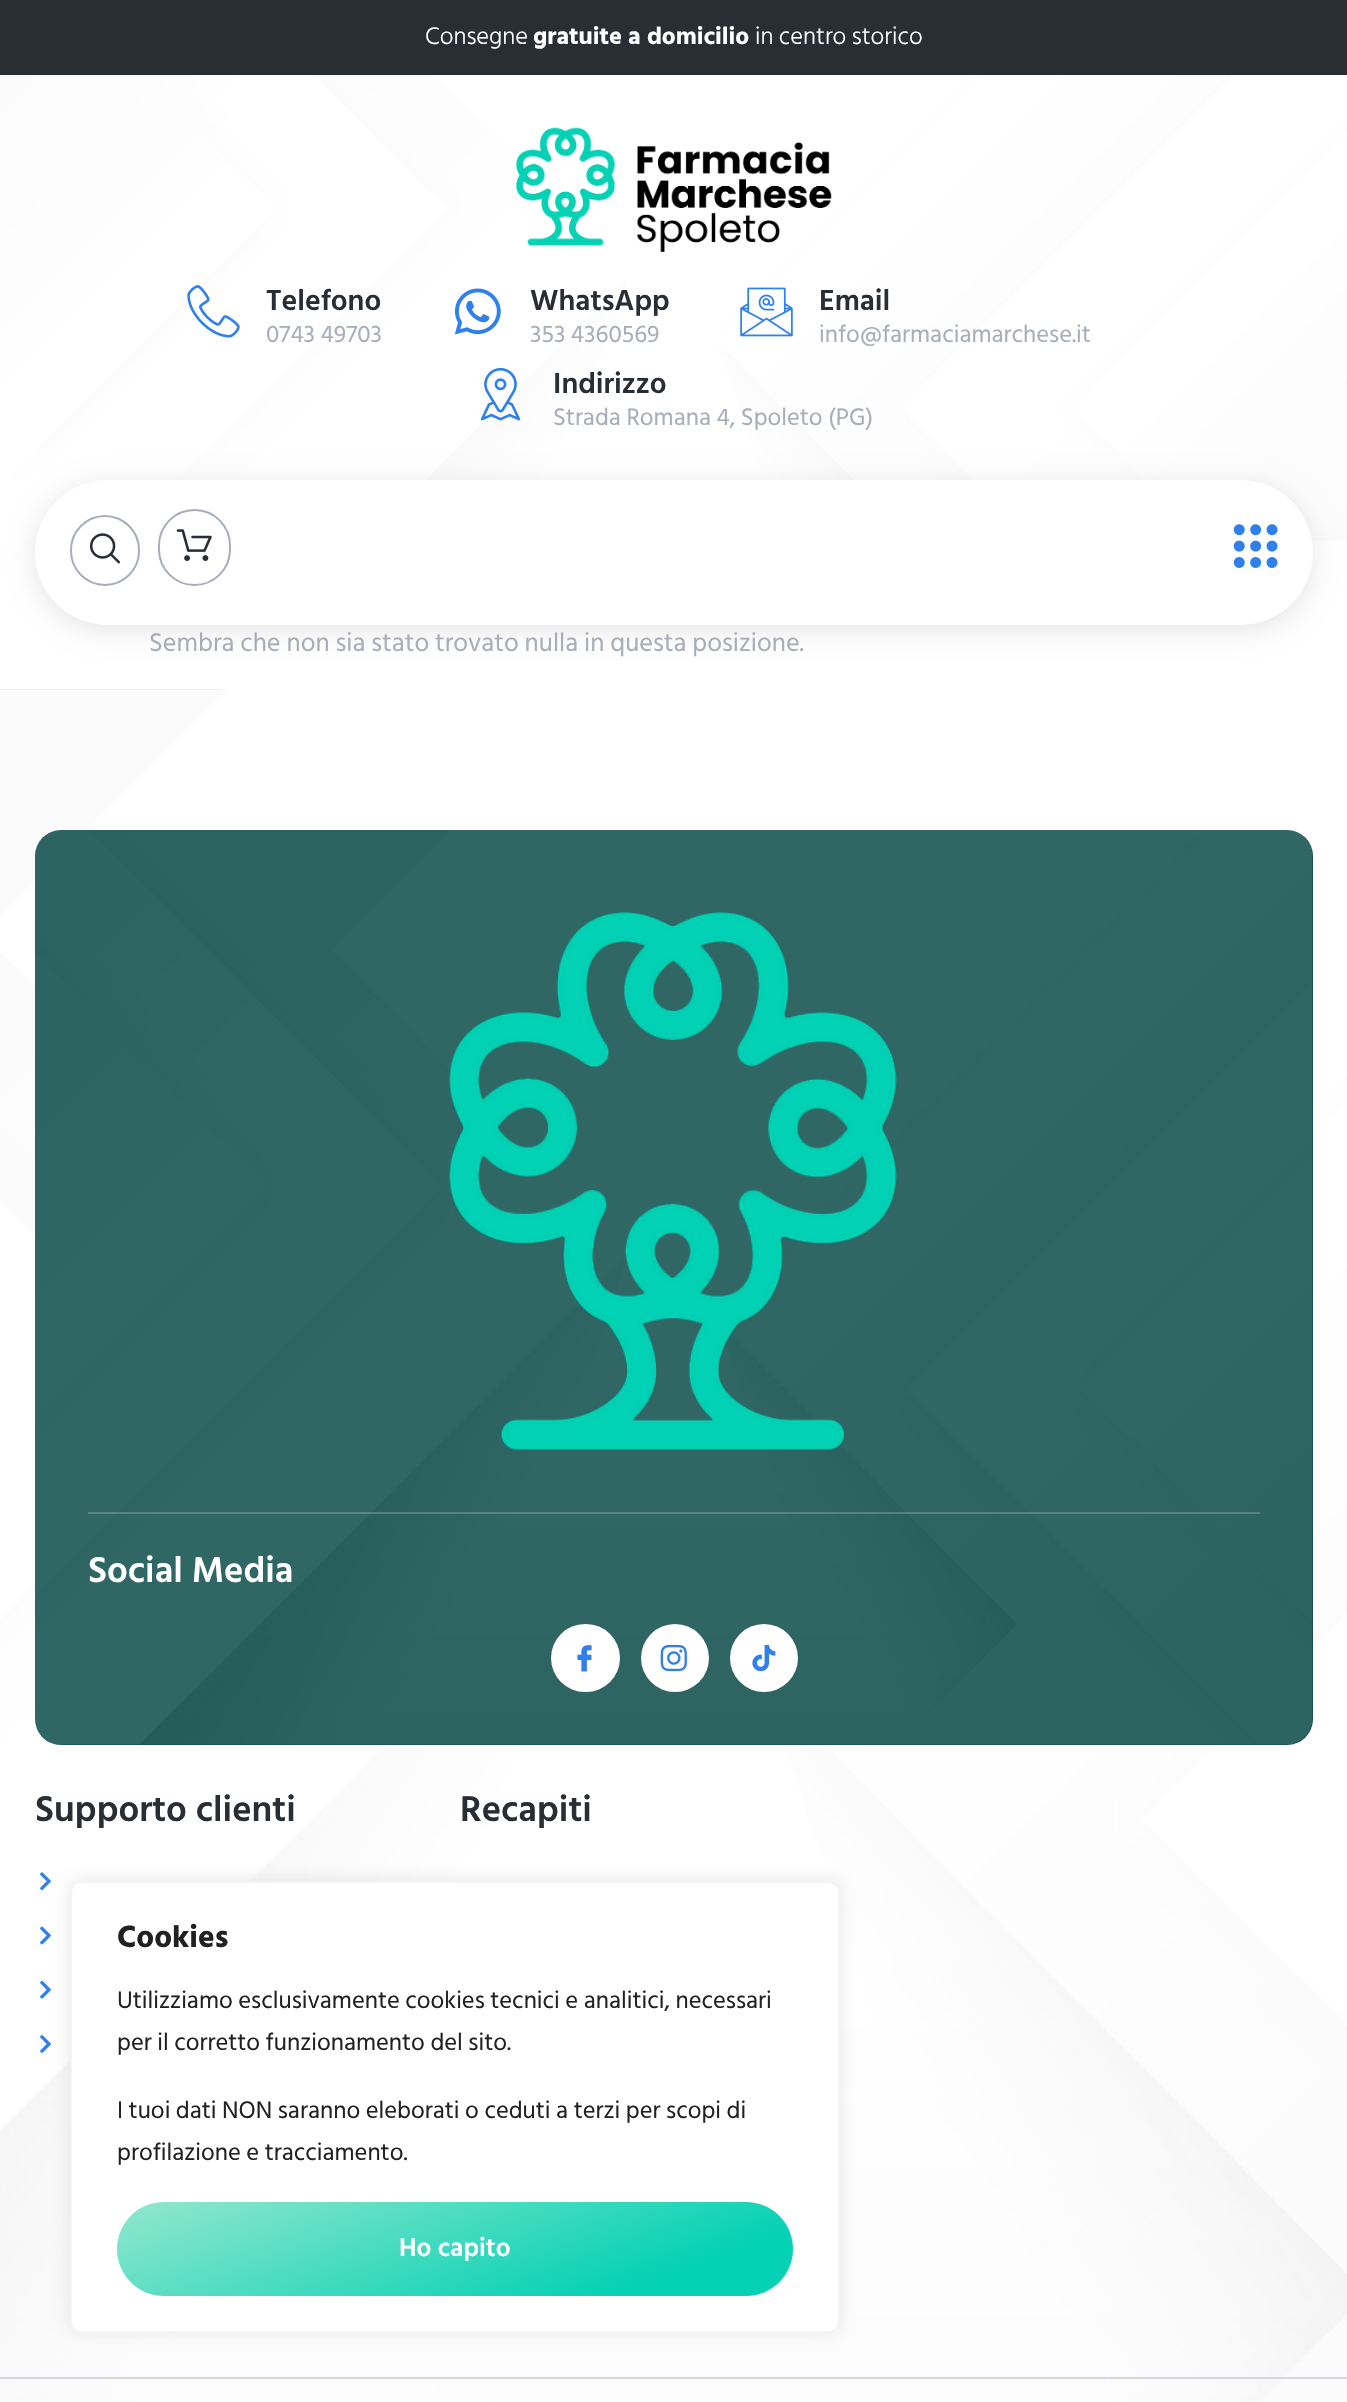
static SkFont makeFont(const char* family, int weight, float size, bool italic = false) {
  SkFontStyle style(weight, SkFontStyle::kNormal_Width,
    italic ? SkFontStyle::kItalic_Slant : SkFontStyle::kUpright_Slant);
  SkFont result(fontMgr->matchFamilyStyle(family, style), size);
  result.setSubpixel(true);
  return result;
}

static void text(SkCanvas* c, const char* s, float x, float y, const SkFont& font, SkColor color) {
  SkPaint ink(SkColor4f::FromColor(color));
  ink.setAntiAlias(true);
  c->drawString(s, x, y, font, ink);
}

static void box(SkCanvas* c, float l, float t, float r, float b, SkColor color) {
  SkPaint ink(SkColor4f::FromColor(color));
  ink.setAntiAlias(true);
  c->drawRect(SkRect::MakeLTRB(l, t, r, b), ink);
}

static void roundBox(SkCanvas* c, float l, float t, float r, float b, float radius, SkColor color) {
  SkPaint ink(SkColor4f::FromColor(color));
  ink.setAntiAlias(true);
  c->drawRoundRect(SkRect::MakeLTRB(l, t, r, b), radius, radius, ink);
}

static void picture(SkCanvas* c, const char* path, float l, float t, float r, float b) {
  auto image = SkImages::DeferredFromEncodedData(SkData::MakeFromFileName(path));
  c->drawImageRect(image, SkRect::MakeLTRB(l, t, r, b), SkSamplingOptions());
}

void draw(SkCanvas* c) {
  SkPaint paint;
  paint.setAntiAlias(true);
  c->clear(0xffffffff);
  box(c, 0, 0, 1347, 75, 0xff292e35);
  SkFont face1 = makeFont("Hind Siliguri", 300, 24.5f);
  text(c, "Consegne", 425, 44, face1, 0xffffffff);
  SkFont face2 = makeFont("Hind Siliguri", 700, 24.5f);
  text(c, "gratuite a domicilio", 533, 44, face2, 0xffffffff);
  text(c, "in centro storico", 755, 44, face1, 0xffffffff);
  picture(c, "img_01.png", 0, 75, 1347, 541);
  picture(c, "img_02.png", 516, 127, 832, 252);
  picture(c, "img_03.png", 187, 285, 240, 338);
  SkFont face3 = makeFont("Hind Siliguri", 600, 29.75f);
  text(c, "Telefono", 266, 310, face3, 0xff292e35);
  SkFont face4 = makeFont("Hind Siliguri", 400, 24.5f);
  text(c, "0743 49703", 266, 342, face4, 0xffa8adb8);
  picture(c, "img_04.png", 454, 288, 501, 335);
  text(c, "WhatsApp", 530, 310, face3, 0xff292e35);
  text(c, "353 4360569", 530, 342, face4, 0xffa8adb8);
  picture(c, "img_05.png", 740, 287, 793, 337);
  text(c, "Email", 819, 310, face3, 0xff292e35);
  text(c, "info@farmaciamarchese.it", 819, 342, face4, 0xffa8adb8);
  picture(c, "img_06.png", 480, 367, 521, 421);
  text(c, "Indirizzo", 553, 393, face3, 0xff292e35);
  text(c, "Strada Romana 4, Spoleto (PG)", 553, 425, face4, 0xffa8adb8);
  paint.setColor(0x1a000000);
  paint.setMaskFilter(SkMaskFilter::MakeBlur(kNormal_SkBlurStyle, 13));
  c->drawRoundRect(SkRect::MakeLTRB(35, 485, 1313, 630), 72.5f, 72.5f, paint);
  paint.setMaskFilter(nullptr);
  roundBox(c, 35, 480, 1313, 625, 72.5f, 0xffffffff);
  paint.setStyle(SkPaint::kStroke_Style);
  paint.setStrokeWidth(2);
  paint.setColor(0xffa8adb8);
  c->drawRoundRect(SkRect::MakeLTRB(71, 516, 139, 585), 34, 34, paint);
  picture(c, "img_07.png", 89, 533, 121, 564);
  c->drawRoundRect(SkRect::MakeLTRB(159, 510, 230, 585), 35.5f, 35.5f, paint);
  picture(c, "img_08.png", 176, 529, 212, 561);
  picture(c, "img_09.png", 1233, 524, 1278, 568);
  SkFont face5 = makeFont("Hind Siliguri", 400, 26.25f);
  text(c, "Sembra che non sia stato trovato nulla in questa posizione.", 149, 651, face5, 0xffa8adb8);
  picture(c, "img_10.png", 0, 689, 1347, 2402);
  roundBox(c, 35, 830, 1313, 1745, 26, 0xff0b4b49);
  picture(c, "img_11.png", 35, 830, 1313, 1745);
  picture(c, "img_12.png", 449, 912, 897, 1450);
  box(c, 88, 1512, 1260, 1514, 0x33ffffff);
  SkFont face6 = makeFont("Hind Siliguri", 600, 36.75f);
  text(c, "Social Media", 88, 1582, face6, 0xffffffff);
  roundBox(c, 551, 1624, 620, 1692, 34, 0xffffffff);
  picture(c, "img_13.png", 577, 1645, 592, 1672);
  paint.setStyle(SkPaint::kFill_Style);
  paint.setColor(0xffffffff);
  c->drawCircle(675, 1658, 34, paint);
  picture(c, "img_14.png", 660, 1644, 687, 1672);
  c->drawCircle(764, 1658, 34, paint);
  picture(c, "img_15.png", 752, 1645, 776, 1671);
  text(c, "Supporto clienti", 35, 1821, face6, 0xff292e35);
  picture(c, "img_16.png", 40, 1872, 51, 1891);
  picture(c, "img_17.png", 40, 1926, 51, 1945);
  picture(c, "img_18.png", 40, 1980, 51, 1999);
  picture(c, "img_19.png", 40, 2035, 51, 2053);
  text(c, "Recapiti", 460, 1821, face6, 0xff292e35);
  box(c, 0, 2377, 1347, 2379, 0xffd4d7dd);
  paint.setColor(0x4dacabab);
  paint.setMaskFilter(SkMaskFilter::MakeBlur(kNormal_SkBlurStyle, 9));
  c->drawRoundRect(SkRect::MakeLTRB(70, 1880, 840, 2331), 11, 11, paint);
  paint.setMaskFilter(nullptr);
  paint.setColor(0xffffffff);
  c->drawRoundRect(SkRect::MakeLTRB(71, 1882, 839, 2332), 10, 10, paint);
  paint.setStyle(SkPaint::kStroke_Style);
  paint.setColor(0xfff4f4f4);
  c->drawRoundRect(SkRect::MakeLTRB(71, 1882, 839, 2332), 10, 10, paint);
  SkFont face7 = makeFont("Hind Siliguri", 700, 31.5f);
  text(c, "Cookies", 117, 1947, face7, 0xff212121);
  text(c, "Utilizziamo esclusivamente cookies tecnici e analitici, necessari", 117, 2008, face4, 0xff212121);
  text(c, "per il corretto funzionamento del sito.", 117, 2050, face4, 0xff212121);
  text(c, "I tuoi dati NON saranno eleborati o ceduti a terzi per scopi di", 117, 2118, face4, 0xff212121);
  text(c, "profilazione e tracciamento.", 117, 2160, face4, 0xff212121);
  paint.setStyle(SkPaint::kFill_Style);
  {
    const SkColor colors[] = {0xff05d1b4, 0xff93e7ce};
    const float stops[] = {0.2f, 1};
    const SkPoint ends[] = {{510, 2399}, {400, 2098}};
    paint.setShader(SkGradientShader::MakeLinear(ends, colors, stops, 2, SkTileMode::kClamp));
    paint.setAlpha(255);
  }
  c->drawRoundRect(SkRect::MakeLTRB(117, 2202, 793, 2296), 47, 47, paint);
  SkFont face8 = makeFont("Hind Siliguri", 600, 26.25f);
  text(c, "Ho capito", 399, 2256, face8, 0xffffffff);
}
